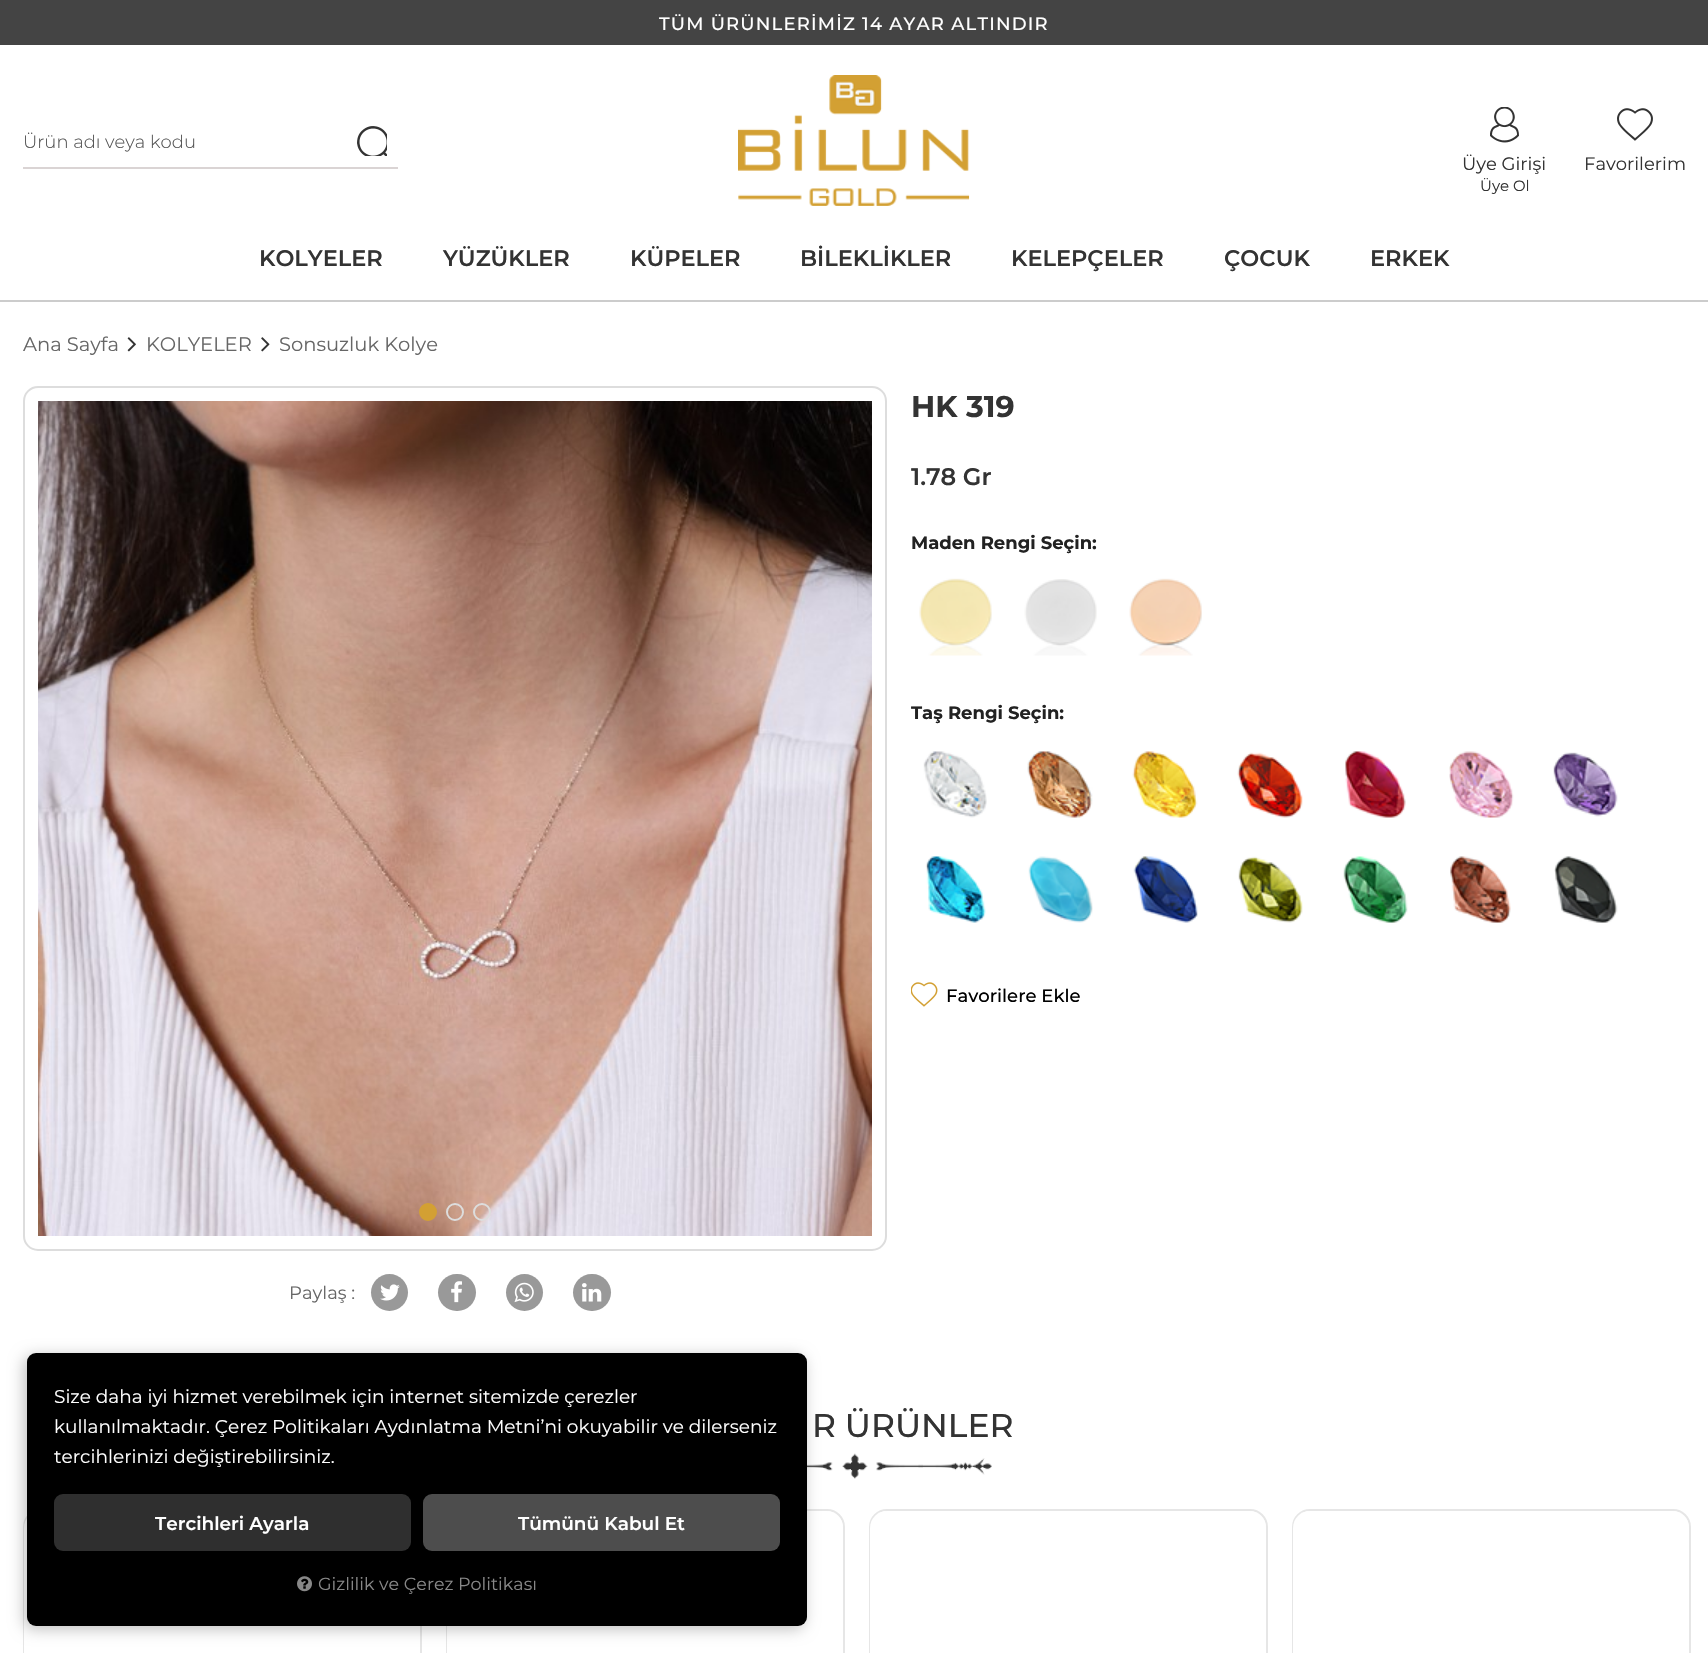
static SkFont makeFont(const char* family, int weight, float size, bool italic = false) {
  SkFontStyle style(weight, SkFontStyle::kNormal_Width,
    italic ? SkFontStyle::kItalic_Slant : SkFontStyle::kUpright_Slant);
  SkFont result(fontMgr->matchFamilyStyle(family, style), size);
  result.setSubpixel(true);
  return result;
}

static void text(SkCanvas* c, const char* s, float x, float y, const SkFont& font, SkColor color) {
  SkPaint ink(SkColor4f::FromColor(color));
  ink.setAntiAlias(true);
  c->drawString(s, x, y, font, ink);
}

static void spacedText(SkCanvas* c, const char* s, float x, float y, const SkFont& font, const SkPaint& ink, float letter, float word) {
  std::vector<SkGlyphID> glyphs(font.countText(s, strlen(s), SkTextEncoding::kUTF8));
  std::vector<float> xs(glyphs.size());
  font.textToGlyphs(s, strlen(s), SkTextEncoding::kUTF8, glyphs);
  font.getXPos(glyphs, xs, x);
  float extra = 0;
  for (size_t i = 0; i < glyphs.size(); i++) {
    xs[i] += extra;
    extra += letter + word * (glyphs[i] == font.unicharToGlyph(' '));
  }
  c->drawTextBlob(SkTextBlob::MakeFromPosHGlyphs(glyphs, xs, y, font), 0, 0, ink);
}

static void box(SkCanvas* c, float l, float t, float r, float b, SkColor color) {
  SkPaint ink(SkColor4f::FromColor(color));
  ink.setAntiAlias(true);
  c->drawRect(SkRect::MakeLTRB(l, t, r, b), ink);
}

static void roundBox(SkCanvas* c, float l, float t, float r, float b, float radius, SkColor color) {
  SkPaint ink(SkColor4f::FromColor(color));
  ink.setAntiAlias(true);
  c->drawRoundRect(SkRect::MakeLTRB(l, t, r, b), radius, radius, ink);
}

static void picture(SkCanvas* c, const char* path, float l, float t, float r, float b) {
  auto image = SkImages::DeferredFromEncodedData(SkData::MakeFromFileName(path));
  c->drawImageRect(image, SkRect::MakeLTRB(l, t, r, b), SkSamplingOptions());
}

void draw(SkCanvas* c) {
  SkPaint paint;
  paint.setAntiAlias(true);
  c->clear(0xffffffff);
  box(c, 0, 300, 1708, 302, 0xffcccccc);
  box(c, 0, 0, 1708, 45, 0xff444444);
  SkFont face1 = makeFont("Montserrat", 500, 18);
  paint.setColor(0xffffffff);
  spacedText(c, "TÜM ÜRÜNLERİMİZ 14 AYAR ALTINDIR", 659, 30, face1, paint, 1.2f, 0);
  box(c, 23, 167, 398, 169, 0xffdad4d4);
  SkFont face2 = makeFont("Montserrat", 300, 18);
  text(c, "Ürün adı veya kodu", 23, 148, face2, 0xff555555);
  picture(c, "img_01.png", 357, 126, 387, 156);
  picture(c, "img_02.png", 738, 75, 970, 206);
  picture(c, "img_03.png", 1490, 107, 1519, 143);
  SkFont face3 = makeFont("Montserrat", 400, 18);
  text(c, "Üye Girişi", 1462, 170, face3, 0xff333333);
  SkFont face4 = makeFont("Montserrat", 400, 15);
  text(c, "Üye Ol", 1480, 191, face4, 0xff333333);
  picture(c, "img_04.png", 1617, 108, 1653, 141);
  text(c, "Favorilerim", 1584, 170, face3, 0xff333333);
  SkFont face5 = makeFont("Montserrat", 600, 22.5f);
  text(c, "KOLYELER", 259, 266, face5, 0xff333333);
  text(c, "YÜZÜKLER", 443, 266, face5, 0xff333333);
  text(c, "KÜPELER", 630, 266, face5, 0xff333333);
  text(c, "BİLEKLİKLER", 800, 266, face5, 0xff333333);
  text(c, "KELEPÇELER", 1011, 266, face5, 0xff333333);
  text(c, "ÇOCUK", 1224, 266, face5, 0xff333333);
  text(c, "ERKEK", 1370, 266, face5, 0xff333333);
  SkFont face6 = makeFont("Montserrat", 400, 19.5f);
  text(c, "Ana Sayfa", 23, 351, face6, 0xff666666);
  picture(c, "img_05.png", 127, 337, 136, 352);
  text(c, "KOLYELER", 146, 351, face6, 0xff666666);
  picture(c, "img_06.png", 261, 337, 270, 352);
  text(c, "Sonsuzluk Kolye", 279, 351, face6, 0xff666666);
  SkFont face7 = makeFont("Montserrat", 700, 30);
  text(c, "HK 319", 911, 417, face7, 0xff333333);
  SkFont face8 = makeFont("Montserrat", 600, 24);
  text(c, "1.78 Gr", 911, 485, face8, 0xff333333);
  SkFont face9 = makeFont("Montserrat", 700, 18);
  text(c, "Maden Rengi Seçin:", 911, 549, face9, 0xff222222);
  picture(c, "img_07.png", 919, 578, 992, 656);
  picture(c, "img_08.png", 1024, 579, 1097, 656);
  picture(c, "img_09.png", 1129, 578, 1202, 656);
  text(c, "Taş Rengi Seçin:", 911, 719, face9, 0xff222222);
  picture(c, "img_10.png", 923, 751, 987, 818);
  picture(c, "img_11.png", 1027, 751, 1093, 818);
  picture(c, "img_12.png", 1132, 751, 1198, 818);
  picture(c, "img_13.png", 1237, 752, 1303, 818);
  picture(c, "img_14.png", 1345, 751, 1406, 818);
  picture(c, "img_15.png", 1449, 751, 1514, 818);
  picture(c, "img_16.png", 1553, 752, 1618, 817);
  picture(c, "img_17.png", 925, 856, 986, 923);
  picture(c, "img_18.png", 1028, 856, 1093, 923);
  picture(c, "img_19.png", 1133, 856, 1198, 923);
  picture(c, "img_20.png", 1238, 856, 1303, 923);
  picture(c, "img_21.png", 1343, 856, 1408, 923);
  picture(c, "img_22.png", 1450, 856, 1511, 923);
  picture(c, "img_23.png", 1554, 856, 1618, 923);
  picture(c, "img_24.png", 911, 982, 938, 1007);
  text(c, "Favorilere Ekle", 946, 1002, face1, 0xff000000);
  paint.setStyle(SkPaint::kStroke_Style);
  paint.setStrokeWidth(2);
  paint.setColor(0xffdddddd);
  c->drawRoundRect(SkRect::MakeLTRB(24, 387, 886, 1250), 14, 14, paint);
  picture(c, "img_25.png", 38, 401, 872, 1236);
  paint.setStyle(SkPaint::kFill_Style);
  paint.setColor(0xffd3a033);
  c->drawCircle(428, 1212, 8, paint);
  paint.setStyle(SkPaint::kStroke_Style);
  c->drawCircle(428, 1212, 8, paint);
  paint.setColor(0xffdddddd);
  c->drawCircle(455, 1212, 8, paint);
  c->drawCircle(482, 1212, 8, paint);
  text(c, "Paylaş :", 289, 1299, face3, 0xff666666);
  paint.setStyle(SkPaint::kFill_Style);
  paint.setColor(0xff999999);
  c->drawCircle(389.5f, 1292.5f, 18.5f, paint);
  picture(c, "img_26.png", 380, 1284, 400, 1301);
  roundBox(c, 438, 1274, 476, 1311, 18.5f, 0xff999999);
  picture(c, "img_27.png", 451, 1281, 462, 1303);
  c->drawCircle(524.5f, 1292.5f, 18.5f, paint);
  picture(c, "img_28.png", 514, 1282, 534, 1303);
  roundBox(c, 573, 1274, 611, 1311, 18.5f, 0xff999999);
  picture(c, "img_29.png", 582, 1283, 602, 1302);
  SkFont face10 = makeFont("Montserrat", 500, 33);
  text(c, "R ÜRÜNLER", 812, 1437, face10, 0xff333333);
  picture(c, "img_30.png", 807, 1453, 992, 1479);
  paint.setStyle(SkPaint::kStroke_Style);
  paint.setColor(0xffe6e6e6);
  c->drawRoundRect(SkRect::MakeLTRB(24, 1510, 421, 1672), 17, 17, paint);
  paint.setStyle(SkPaint::kFill_Style);
  paint.setColor(0xffffffff);
  c->drawPath(SkPathBuilder().moveTo(41, 1511).lineTo(403, 1511).cubicTo(412.5f, 1511, 420, 1518.5f, 420, 1528).lineTo(420, 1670).lineTo(24, 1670).lineTo(24, 1528).cubicTo(24, 1518.5f, 31.5f, 1511, 41, 1511).close().detach(), paint);
  paint.setStyle(SkPaint::kStroke_Style);
  paint.setColor(0xffe6e6e6);
  c->drawRoundRect(SkRect::MakeLTRB(447, 1510, 844, 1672), 17, 17, paint);
  paint.setStyle(SkPaint::kFill_Style);
  paint.setColor(0xffffffff);
  c->drawPath(SkPathBuilder().moveTo(464, 1511).lineTo(826, 1511).cubicTo(835.5f, 1511, 843, 1518.5f, 843, 1528).lineTo(843, 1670).lineTo(447, 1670).lineTo(447, 1528).cubicTo(447, 1518.5f, 454.5f, 1511, 464, 1511).close().detach(), paint);
  paint.setStyle(SkPaint::kStroke_Style);
  paint.setColor(0xffe6e6e6);
  c->drawRoundRect(SkRect::MakeLTRB(870, 1510, 1267, 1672), 17, 17, paint);
  paint.setStyle(SkPaint::kFill_Style);
  paint.setColor(0xffffffff);
  c->drawPath(SkPathBuilder().moveTo(887, 1511).lineTo(1249, 1511).cubicTo(1258.5f, 1511, 1266, 1518.5f, 1266, 1528).lineTo(1266, 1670).lineTo(870, 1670).lineTo(870, 1528).cubicTo(870, 1518.5f, 877.5f, 1511, 887, 1511).close().detach(), paint);
  paint.setStyle(SkPaint::kStroke_Style);
  paint.setColor(0xffe6e6e6);
  c->drawRoundRect(SkRect::MakeLTRB(1293, 1510, 1690, 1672), 17, 17, paint);
  paint.setStyle(SkPaint::kFill_Style);
  paint.setColor(0xffffffff);
  c->drawPath(SkPathBuilder().moveTo(1310, 1511).lineTo(1672, 1511).cubicTo(1681.5f, 1511, 1689, 1518.5f, 1689, 1528).lineTo(1689, 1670).lineTo(1293, 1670).lineTo(1293, 1528).cubicTo(1293, 1518.5f, 1300.5f, 1511, 1310, 1511).close().detach(), paint);
  paint.setColor(0x40000000);
  paint.setMaskFilter(SkMaskFilter::MakeBlur(kNormal_SkBlurStyle, 7.5f));
  c->drawRoundRect(SkRect::MakeLTRB(24, 1356, 804, 1629), 9, 9, paint);
  paint.setMaskFilter(nullptr);
  roundBox(c, 27, 1353, 807, 1626, 9, 0xff000000);
  SkFont face11 = makeFont("Montserrat", 400, 18.5f);
  text(c, "Size daha iyi hizmet verebilmek için internet sitemizde çerezler", 54, 1403, face11, 0xffffffff);
  text(c, "kullanılmaktadır. Çerez Politikaları Aydınlatma Metni’ni okuyabilir ve dilerseniz", 54, 1433, face11, 0xffffffff);
  text(c, "tercihlerinizi değiştirebilirsiniz.", 54, 1463, face11, 0xffffffff);
  roundBox(c, 54, 1494, 411, 1551, 9, 0xff2f2f2f);
  SkFont face12 = makeFont("Montserrat", 600, 18.5f);
  text(c, "Tercihleri Ayarla", 155, 1530, face12, 0xffffffff);
  roundBox(c, 423, 1494, 780, 1551, 9, 0xff4d4d4d);
  text(c, "Tümünü Kabul Et", 518, 1530, face12, 0xffffffff);
  picture(c, "img_31.png", 297, 1576, 312, 1592);
  SkFont face13 = makeFont("Montserrat", 400, 17.5f);
  text(c, "Gizlilik ve Çerez Politikası", 318, 1590, face13, 0xff888888);
}
